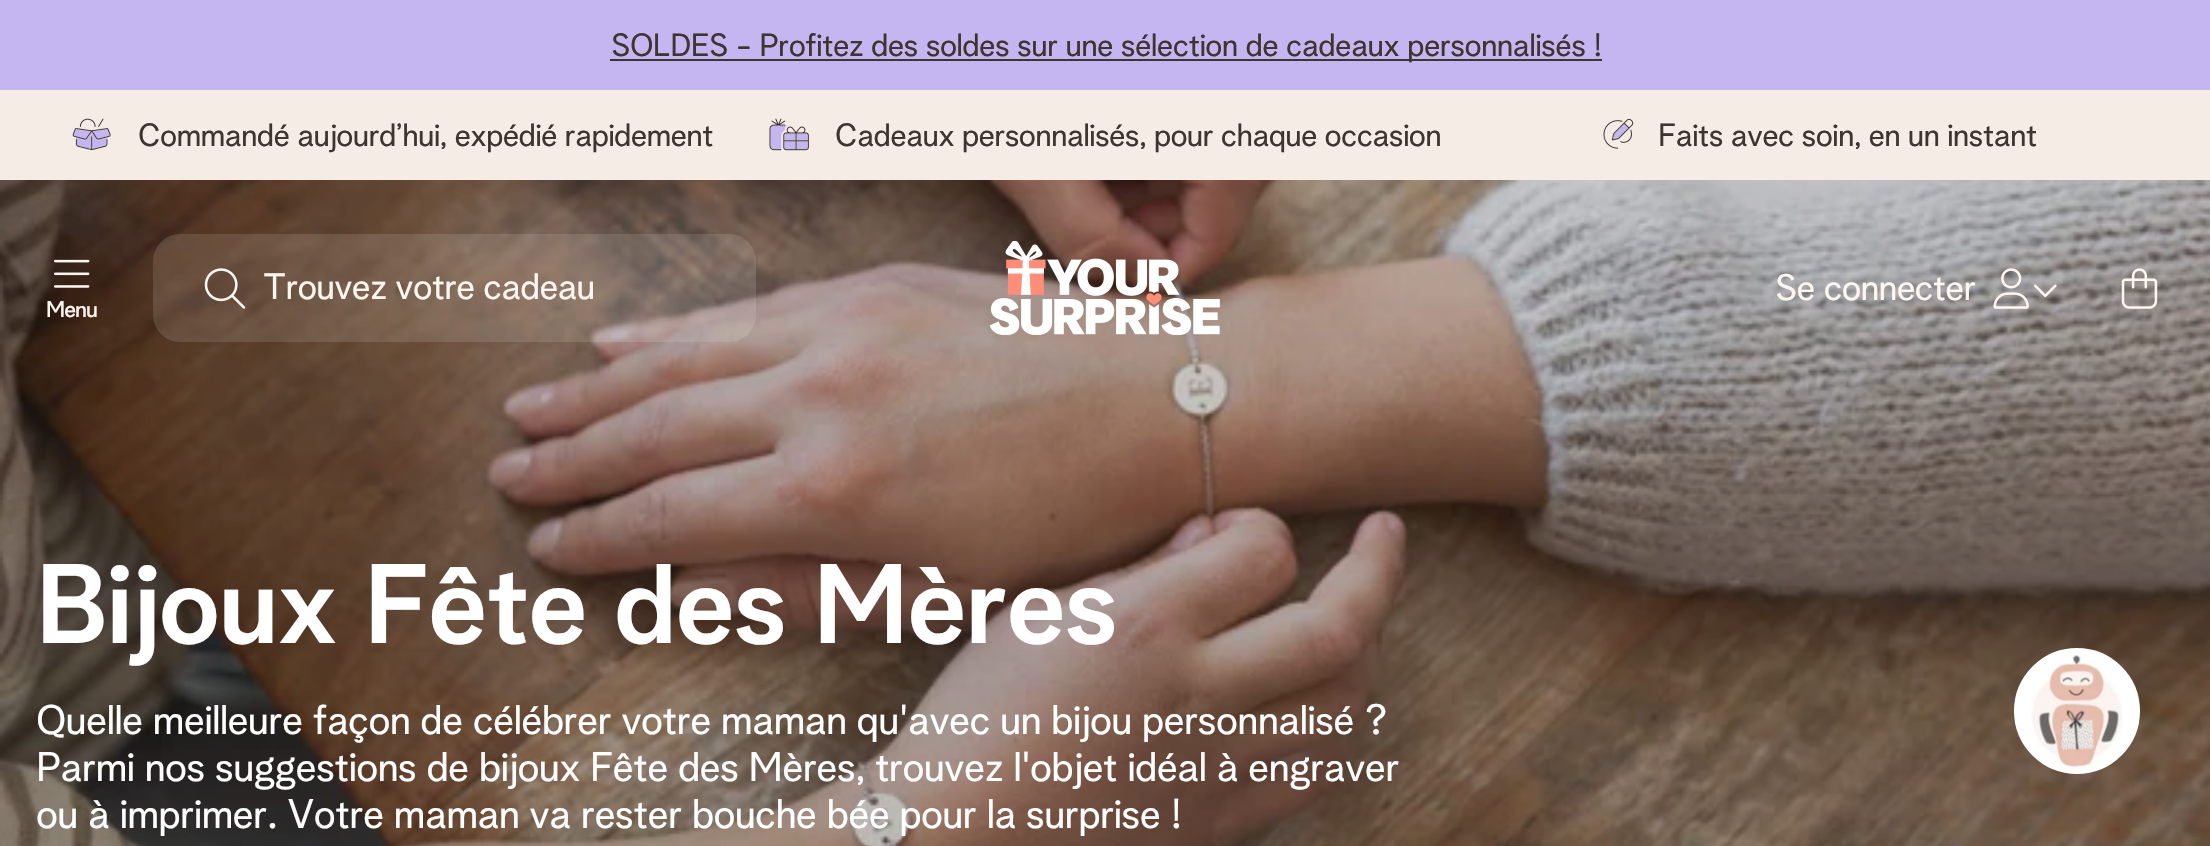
static SkFont makeFont(const char* family, int weight, float size, bool italic = false) {
  SkFontStyle style(weight, SkFontStyle::kNormal_Width,
    italic ? SkFontStyle::kItalic_Slant : SkFontStyle::kUpright_Slant);
  SkFont result(fontMgr->matchFamilyStyle(family, style), size);
  result.setSubpixel(true);
  return result;
}

static void spacedText(SkCanvas* c, const char* s, float x, float y, const SkFont& font, const SkPaint& ink, float letter, float word) {
  std::vector<SkGlyphID> glyphs(font.countText(s, strlen(s), SkTextEncoding::kUTF8));
  std::vector<float> xs(glyphs.size());
  font.textToGlyphs(s, strlen(s), SkTextEncoding::kUTF8, glyphs);
  font.getXPos(glyphs, xs, x);
  float extra = 0;
  for (size_t i = 0; i < glyphs.size(); i++) {
    xs[i] += extra;
    extra += letter + word * (glyphs[i] == font.unicharToGlyph(' '));
  }
  c->drawTextBlob(SkTextBlob::MakeFromPosHGlyphs(glyphs, xs, y, font), 0, 0, ink);
}

static void box(SkCanvas* c, float l, float t, float r, float b, SkColor color) {
  SkPaint ink(SkColor4f::FromColor(color));
  ink.setAntiAlias(true);
  c->drawRect(SkRect::MakeLTRB(l, t, r, b), ink);
}

static void roundBox(SkCanvas* c, float l, float t, float r, float b, float radius, SkColor color) {
  SkPaint ink(SkColor4f::FromColor(color));
  ink.setAntiAlias(true);
  c->drawRoundRect(SkRect::MakeLTRB(l, t, r, b), radius, radius, ink);
}

static void picture(SkCanvas* c, const char* path, float l, float t, float r, float b) {
  auto image = SkImages::DeferredFromEncodedData(SkData::MakeFromFileName(path));
  c->drawImageRect(image, SkRect::MakeLTRB(l, t, r, b), SkSamplingOptions());
}

void draw(SkCanvas* c) {
  SkPaint paint;
  paint.setAntiAlias(true);
  c->clear(0xfff5ece6);
  box(c, 0, 0, 2210, 90, 0xffc5b5f1);
  box(c, 610, 59, 1602, 61, 0xff3d3530);
  SkFont face1 = makeFont("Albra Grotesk", 400, 31.5f);
  paint.setColor(0xff3d3530);
  spacedText(c, "SOLDES - Profitez des soldes sur une sélection de cadeaux personnalisés !", 611, 56, face1, paint, -0.63f, 0);
  picture(c, "img_02.png", 73, 129, 110, 149);
  picture(c, "img_01.png", 72, 118, 111, 150);
  spacedText(c, "Commandé aujourd’hui, expédié rapidement", 138, 146, face1, paint, -0.72f, 0);
  picture(c, "img_04.png", 770, 124, 808, 150);
  picture(c, "img_03.png", 769, 118, 809, 151);
  spacedText(c, "Cadeaux personnalisés, pour chaque occasion", 835, 146, face1, paint, -0.72f, 0);
  picture(c, "img_06.png", 1613, 124, 1628, 140);
  picture(c, "img_05.png", 1603, 118, 1634, 149);
  spacedText(c, "Faits avec soin, en un instant", 1658, 146, face1, paint, -0.72f, 0);
  picture(c, "img_13.png", 0, 180, 2210, 846);
  roundBox(c, 153, 234, 756, 342, 27, 0x1ffff6f0);
  picture(c, "img_07.png", 204, 268, 246, 309);
  SkFont face2 = makeFont("Albra Grotesk", 400, 36);
  paint.setColor(0xfffff6f0);
  spacedText(c, "Trouvez votre cadeau", 263, 299, face2, paint, -0.72f, 0);
  picture(c, "img_08.png", 54, 259, 90, 288);
  SkFont face3 = makeFont("Albra Grotesk", 500, 22.5f);
  spacedText(c, "Menu", 46, 317, face3, paint, -1, 0);
  picture(c, "img_09.png", 989, 241, 1220, 335);
  spacedText(c, "Se connecter", 1775, 300, face2, paint, -0.72f, 0);
  picture(c, "img_10.png", 1993, 268, 2029, 309);
  picture(c, "img_11.png", 2033, 284, 2057, 298);
  picture(c, "img_12.png", 2121, 268, 2158, 309);
  SkFont face4 = makeFont("Albra Grotesk", 600, 110.5f);
  paint.setColor(0xffffffff);
  spacedText(c, "Bijoux Fête des Mères", 36, 643, face4, paint, -0.72f, 0);
  SkFont face5 = makeFont("Albra Grotesk", 400, 40.5f);
  spacedText(c, "Quelle meilleure façon de célébrer votre maman qu'avec un bijou personnalisé ?", 36, 734, face5, paint, -0.72f, 0);
  spacedText(c, "Parmi nos suggestions de bijoux Fête des Mères, trouvez l'objet idéal à engraver", 36, 781, face5, paint, -0.72f, 0);
  spacedText(c, "ou à imprimer. Votre maman va rester bouche bée pour la surprise !", 36, 828, face5, paint, -0.72f, 0);
  c->drawCircle(2077, 711, 60.5f, paint);
  paint.setStyle(SkPaint::kStroke_Style);
  paint.setStrokeWidth(5);
  c->drawCircle(2077, 711, 60.5f, paint);
  picture(c, "img_14.png", 2031, 654, 2123, 768);
}
